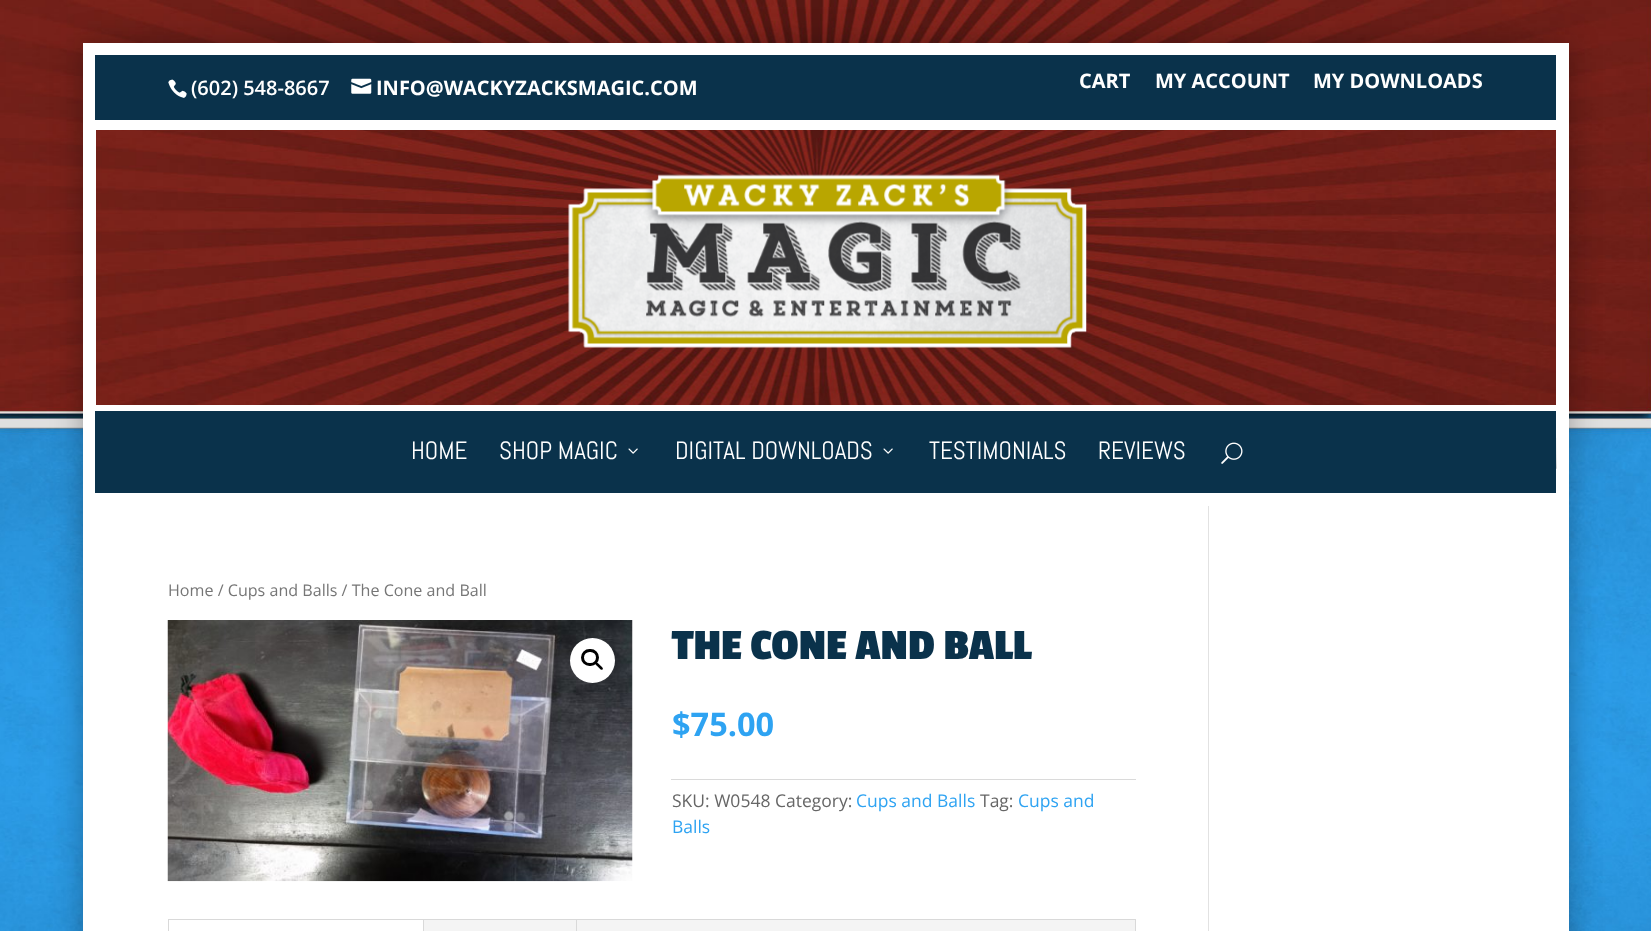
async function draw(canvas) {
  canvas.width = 1651
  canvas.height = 931
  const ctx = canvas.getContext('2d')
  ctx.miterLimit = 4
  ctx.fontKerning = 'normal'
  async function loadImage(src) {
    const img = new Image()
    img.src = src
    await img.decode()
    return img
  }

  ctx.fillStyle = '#fff'
  ctx.fillRect(0, 0, 1651, 931)
  ctx.drawImage(await loadImage('image0.png'), 0, 0, 1651, 931)
  ctx.save()
  ctx.beginPath()
  ctx.moveTo(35, 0)
  ctx.lineTo(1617, 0)
  ctx.lineTo(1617, 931)
  ctx.lineTo(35, 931)
  ctx.closePath()
  ctx.moveTo(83, 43)
  ctx.lineTo(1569, 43)
  ctx.lineTo(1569, 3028)
  ctx.lineTo(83, 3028)
  ctx.closePath()
  ctx.clip('evenodd')
  ctx.fillStyle = '#0000004d'
  ctx.filter = 'blur(15.5px)'
  ctx.beginPath()
  ctx.rect(83, 43, 1486, 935)
  ctx.fill()
  ctx.filter = 'none'
  ctx.restore()
  ctx.strokeStyle = '#fff'
  ctx.lineWidth = 13
  ctx.strokeRect(89.5, 49.5, 1473, 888)
  ctx.fillStyle = '#0a324b'
  ctx.fillRect(95, 55, 1461, 65)
  ctx.fillStyle = '#fff'
  ctx.fillRect(96, 120, 1460, 10)
  ctx.drawImage(await loadImage('image1.png'), 168, 79, 19, 19)
  ctx.font = '600 20px Open Sans'
  ctx.fillText('(602) 548-8667', 191, 95)
  ctx.drawImage(await loadImage('image2.png'), 351, 78, 21, 16)
  ctx.font = 'bold 20px Open Sans'
  ctx.fillText('INFO@WACKYZACKSMAGIC.COM', 376, 95)
  ctx.fillText('CART', 1079, 88)
  ctx.fillText('MY ACCOUNT', 1155, 88)
  ctx.fillText('MY DOWNLOADS', 1313, 88)
  ctx.drawImage(await loadImage('image3.png'), 1556, 438, 1, 31)
  ctx.fillRect(96, 506, 1460, 425)
  ctx.fillStyle = '#e2e2e2'
  ctx.fillRect(1208, 505, 1, 426)
  ctx.fillStyle = '#fff'
  ctx.fillRect(95, 503, 1461, 3)
  ctx.drawImage(await loadImage('image4.png'), 568, 174, 519, 174)
  ctx.fillStyle = '#0a324b'
  ctx.fillRect(95, 411, 1461, 82)
  ctx.fillStyle = '#fff'
  ctx.fillRect(95, 405, 1461, 6)
  ctx.fillRect(96, 493, 1460, 10)
  ctx.font = '25px Abel'
  ctx.fillText('HOME', 411, 459)
  ctx.fillText('SHOP MAGIC', 499, 459)
  ctx.drawImage(await loadImage('image5.png'), 628, 448, 10, 6)
  ctx.fillText('DIGITAL DOWNLOADS', 675, 459)
  ctx.drawImage(await loadImage('image5.png'), 883, 448, 10, 6)
  ctx.fillText('TESTIMONIALS', 929, 459)
  ctx.fillText('REVIEWS', 1098, 459)
  ctx.drawImage(await loadImage('image6.png'), 1221, 442, 22, 22)
  ctx.font = '16.1px Open Sans'
  ctx.fillStyle = '#767676'
  ctx.fillText('Home / Cups and Balls / The Cone and Ball', 168, 596)
  ctx.drawImage(await loadImage('image7.png'), 167, 620, 466, 262)
  ctx.fillStyle = '#fff'
  ctx.beginPath()
  ctx.arc(592.5, 660.5, 22.5, 0, 2 * Math.PI)
  ctx.fill()
  ctx.beginPath()
  ctx.roundRect(582.5, 650.5, 15, 14, 7)
  ctx.strokeStyle = '#000'
  ctx.lineWidth = 3
  ctx.stroke()
  ctx.fillStyle = '#000'
  ctx.beginPath()
  ctx.moveTo(595.5, 662.5)
  ctx.bezierCurveTo(597, 661, 599, 664.5, 600, 665)
  ctx.bezierCurveTo(600.5, 666, 604, 668, 602.5, 669.5)
  ctx.bezierCurveTo(601, 671, 599, 667.5, 598, 667)
  ctx.bezierCurveTo(597.5, 666, 594, 664, 595.5, 662.5)
  ctx.closePath()
  ctx.fill()
  ctx.font = 'bold 45px Passion One'
  ctx.fillStyle = '#0a324b'
  ctx.fillText('THE CONE AND BALL', 672, 659)
  ctx.font = 'bold 32.5px Open Sans'
  ctx.fillStyle = '#2ea3f2'
  ctx.fillText('$75.00', 672, 736)
  ctx.fillStyle = '#dadada'
  ctx.fillRect(671, 779, 465, 1)
  ctx.font = '17.5px Open Sans'
  ctx.fillStyle = '#666'
  ctx.fillText('SKU: W0548 Category:', 672, 807)
  ctx.fillStyle = '#2ea3f2'
  ctx.fillText('Cups and Balls', 856, 807)
  ctx.fillStyle = '#666'
  ctx.fillText('Tag:', 980, 807)
  ctx.fillStyle = '#2ea3f2'
  ctx.fillText('Cups and', 1018, 807)
  ctx.fillText('Balls', 672, 833)
  ctx.strokeStyle = '#d9d9d9'
  ctx.lineWidth = 1
  ctx.strokeRect(168.5, 919.5, 967, 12)
  ctx.fillStyle = '#f4f4f4'
  ctx.fillRect(424, 920, 711, 11)
  ctx.fillStyle = '#d9d9d9'
  ctx.fillRect(423, 920, 1, 11)
  ctx.fillRect(576, 920, 1, 11)
}

draw(document.querySelector('canvas'))
